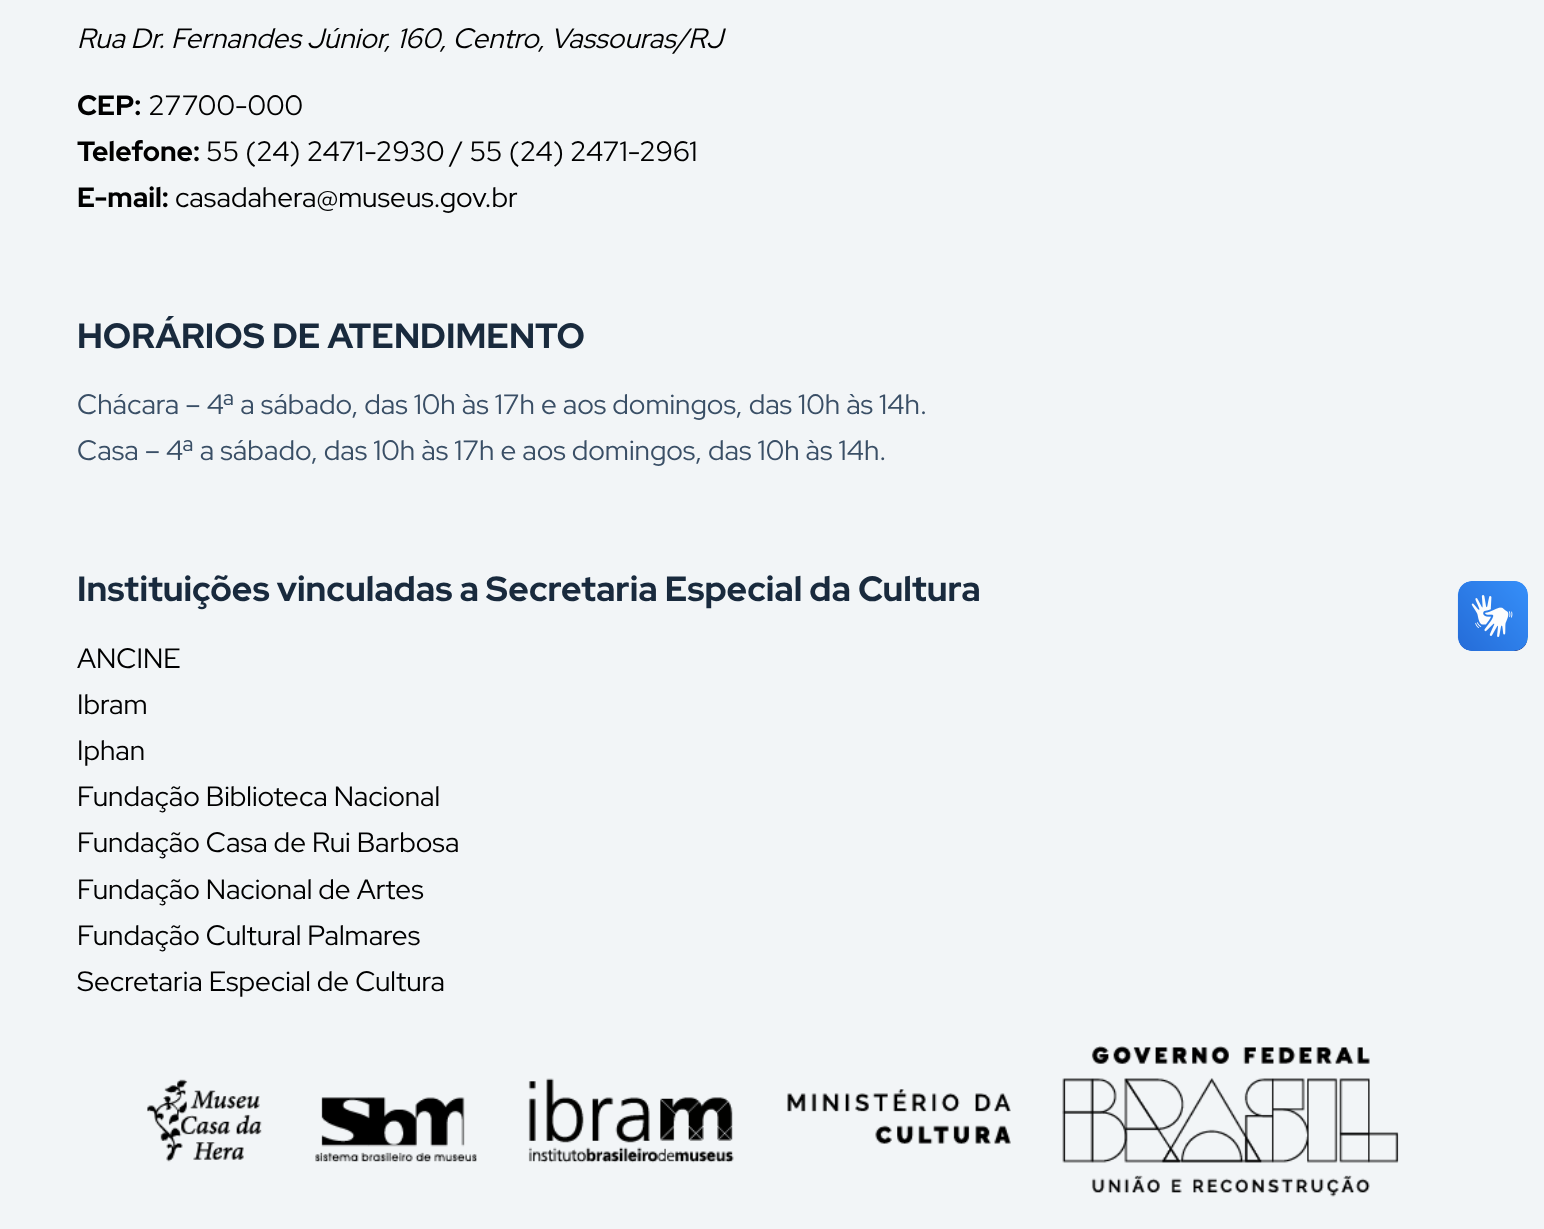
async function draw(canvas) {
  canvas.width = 1544
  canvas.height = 1229
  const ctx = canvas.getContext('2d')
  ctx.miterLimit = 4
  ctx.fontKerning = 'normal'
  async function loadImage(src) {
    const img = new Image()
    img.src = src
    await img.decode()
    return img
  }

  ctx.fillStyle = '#f2f5f7'
  ctx.fillRect(0, 0, 1544, 1229)
  ctx.font = 'italic 28px Red Hat Display'
  ctx.fillStyle = '#000'
  ctx.fillText('Rua Dr. Fernandes Júnior, 160, Centro, Vassouras/RJ', 77, 48)
  ctx.font = 'bold 28px Red Hat Display'
  ctx.fillText('CEP:', 77, 115)
  ctx.font = '28px Red Hat Display'
  ctx.fillText('27700-000', 148, 115)
  ctx.font = 'bold 28px Red Hat Display'
  ctx.fillText('Telefone:', 77, 161)
  ctx.font = '28px Red Hat Display'
  ctx.fillText('55 (24) 2471-2930 / 55 (24) 2471-2961', 206, 161)
  ctx.font = 'bold 28px Red Hat Display'
  ctx.fillText('E-mail:', 77, 207)
  ctx.font = '28px Red Hat Display'
  ctx.fillText('casadahera@museus.gov.br', 175, 207)
  ctx.font = 'bold 35px Red Hat Display'
  ctx.fillStyle = '#192a3d'
  ctx.fillText('HORÁRIOS DE ATENDIMENTO', 77, 348)
  ctx.font = '28px Red Hat Display'
  ctx.fillStyle = '#3a4f66'
  ctx.fillText('Chácara – 4ª a sábado, das 10h às 17h e aos domingos, das 10h às 14h.', 77, 414)
  ctx.fillText('Casa – 4ª a sábado, das 10h às 17h e aos domingos, das 10h às 14h.', 77, 460)
  ctx.font = 'bold 35px Red Hat Display'
  ctx.fillStyle = '#192a3d'
  ctx.fillText('Instituições vinculadas a Secretaria Especial da Cultura', 77, 601)
  ctx.font = '28px Red Hat Display'
  ctx.fillStyle = '#000'
  ctx.fillText('ANCINE', 77, 668)
  ctx.fillText('Ibram', 77, 714)
  ctx.fillText('Iphan', 77, 760)
  ctx.fillText('Fundação Biblioteca Nacional', 77, 806)
  ctx.fillText('Fundação Casa de Rui Barbosa', 77, 852)
  ctx.fillText('Fundação Nacional de Artes', 77, 899)
  ctx.fillText('Fundação Cultural Palmares', 77, 945)
  ctx.fillText('Secretaria Especial de Cultura', 77, 991)
  ctx.drawImage(await loadImage('image0.png'), 147, 1046, 1252, 151)
  ctx.drawImage(await loadImage('image1.png'), 1457, 581, 71, 70)
  ctx.drawImage(await loadImage('image2.png'), 1458, 581, 70, 70)
}

draw(document.querySelector('canvas'))
